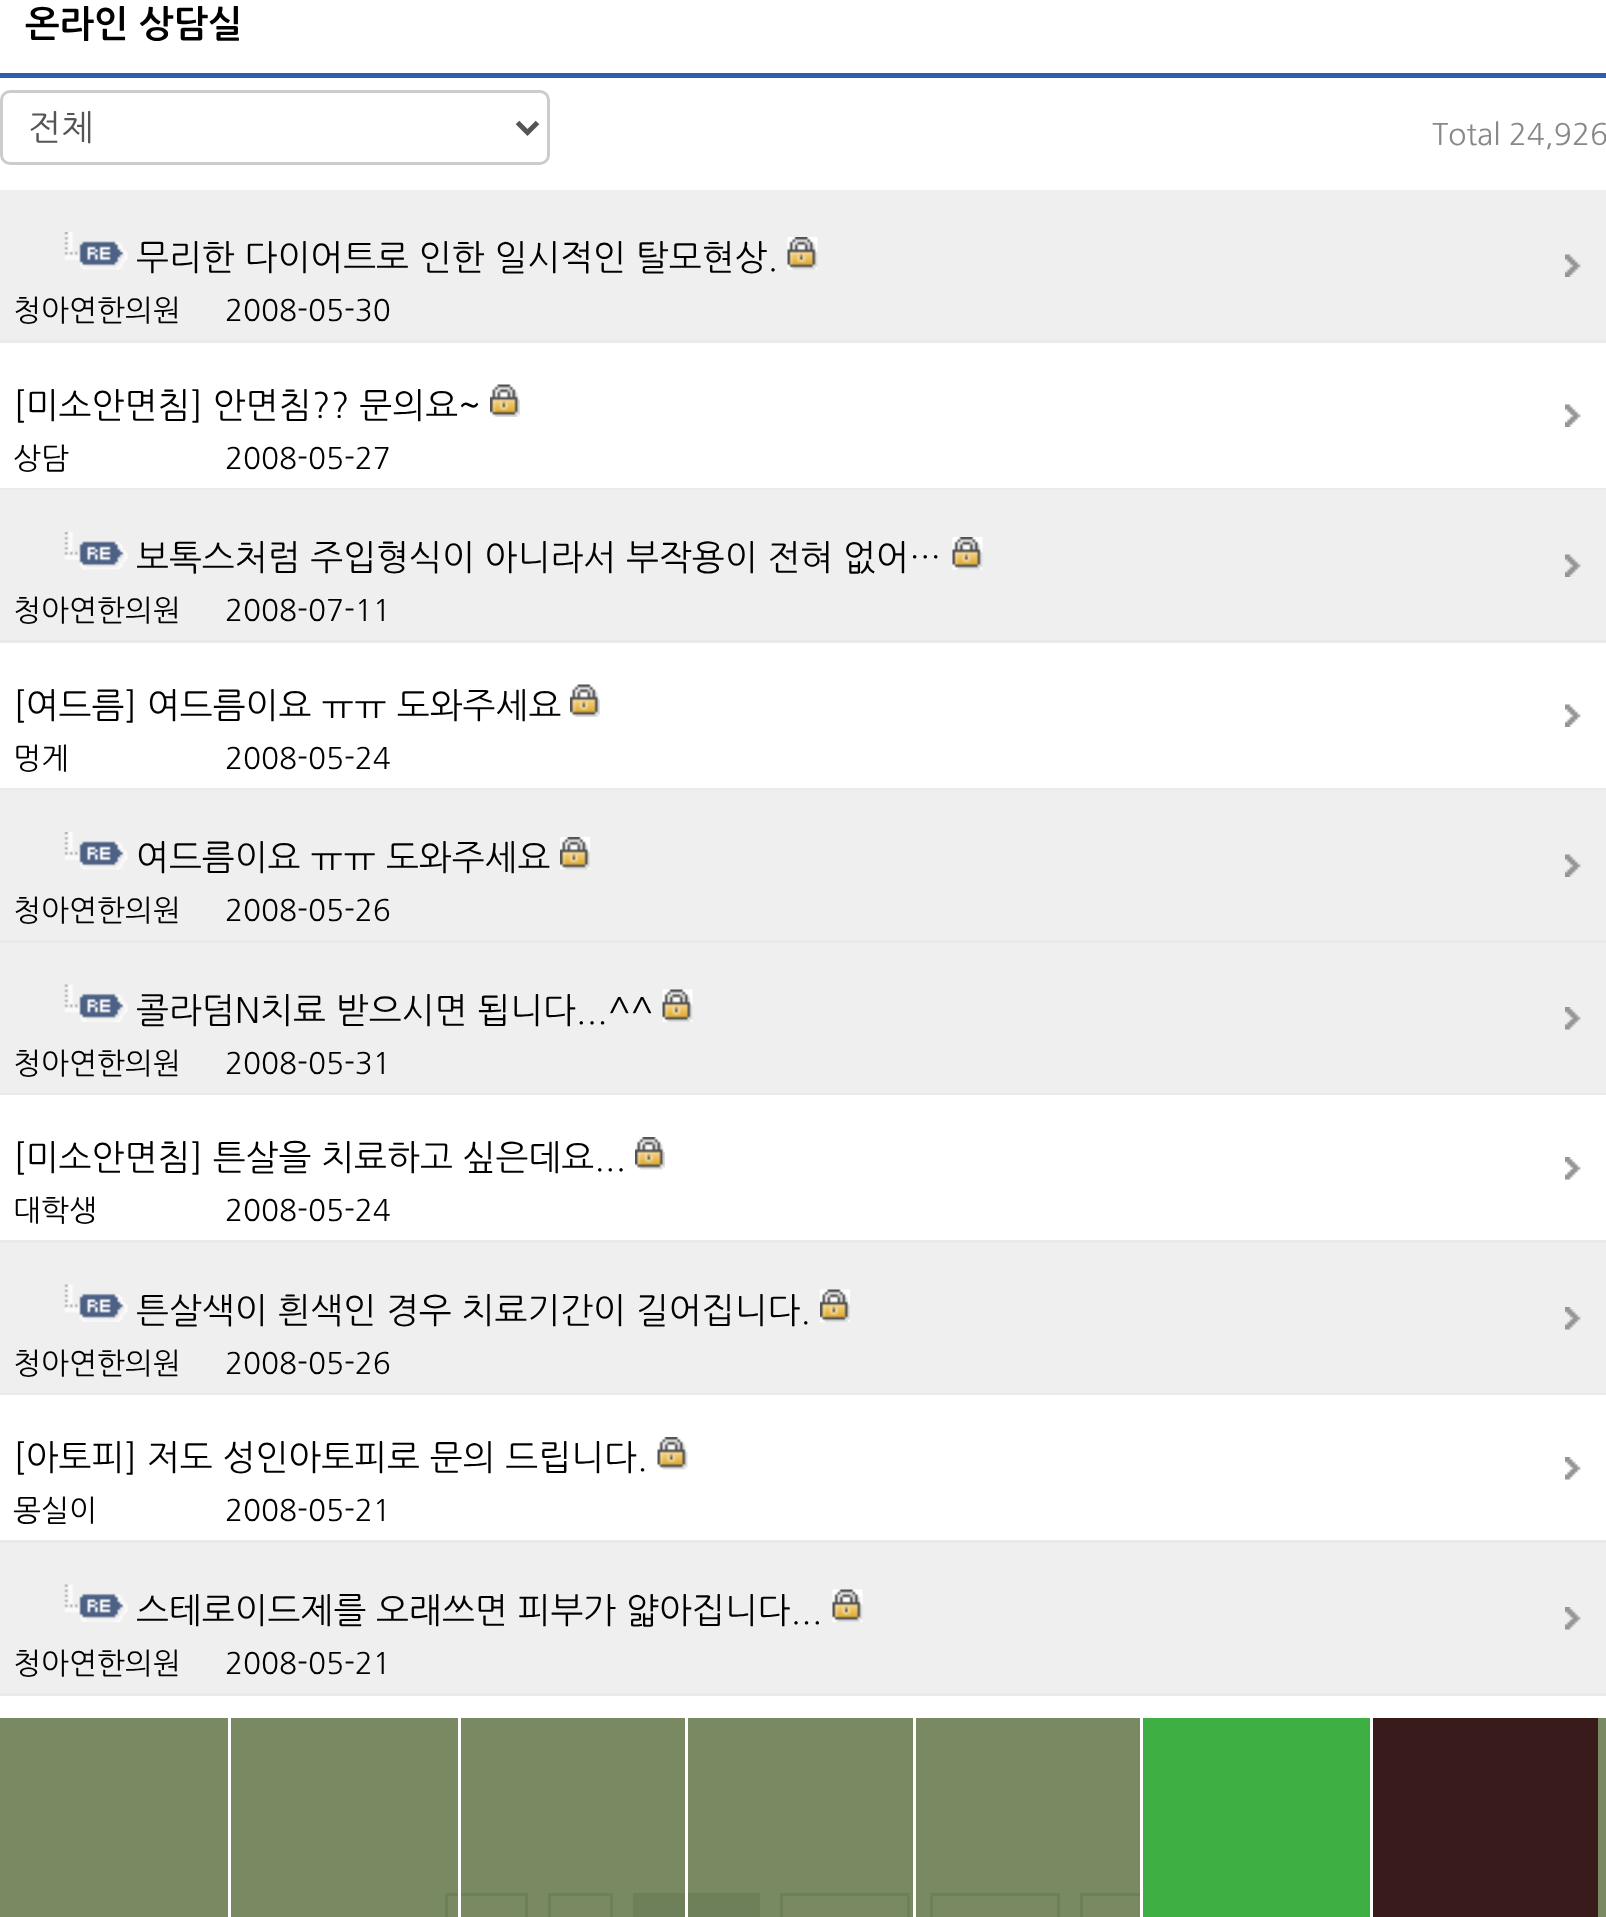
async function draw(canvas) {
  canvas.width = 1606
  canvas.height = 1917
  const ctx = canvas.getContext('2d')
  ctx.miterLimit = 4
  ctx.fontKerning = 'normal'
  async function loadImage(src) {
    const img = new Image()
    img.src = src
    await img.decode()
    return img
  }

  ctx.fillStyle = '#fff'
  ctx.fillRect(0, 0, 1606, 1917)
  ctx.fillStyle = '#798a63'
  ctx.fillRect(0, 1718, 1606, 199)
  ctx.fillStyle = '#2b5eb0'
  ctx.fillRect(0, 73, 1606, 5)
  ctx.font = 'bold 36.75px NanumGothic'
  ctx.fillStyle = '#000'
  ctx.fillText('온라인 상담실', 25, 37)
  ctx.beginPath()
  ctx.roundRect(1.5, 91.5, 547, 72, 8.5)
  ctx.strokeStyle = '#ccc'
  ctx.lineWidth = 3
  ctx.stroke()
  ctx.beginPath()
  ctx.moveTo(517.5, 122.5)
  ctx.lineTo(527.5, 132.5)
  ctx.lineTo(537.5, 122.5)
  ctx.strokeStyle = '#555'
  ctx.lineWidth = 5
  ctx.stroke()
  ctx.font = '35px NanumGothic'
  ctx.fillStyle = '#555'
  ctx.fillText('전체', 28, 140)
  ctx.font = '29.75px NanumGothic'
  ctx.fillStyle = '#888'
  ctx.fillText('Total 24,926', 1432, 145)
  ctx.fillStyle = '#efefef'
  ctx.fillRect(0, 190, 1606, 150)
  ctx.fillStyle = '#eaeaea'
  ctx.fillRect(0, 340, 1606, 3)
  ctx.drawImage(await loadImage('image0.png'), 1565, 254, 16, 23)
  ctx.drawImage(await loadImage('image1.png'), 64, 232, 64, 38)
  ctx.font = '35px NanumGothic'
  ctx.fillStyle = '#000'
  ctx.fillText('무리한 다이어트로 인한 일시적인 탈모현상.', 136, 270)
  ctx.drawImage(await loadImage('image2.png'), 787, 237, 31, 33)
  ctx.font = '29.75px NanumGothic'
  ctx.fillText('청아연한의원', 13, 321)
  ctx.fillText('2008-05-30', 225, 321)
  ctx.fillStyle = '#eaeaea'
  ctx.fillRect(0, 488, 1606, 2)
  ctx.drawImage(await loadImage('image3.png'), 1565, 404, 16, 23)
  ctx.font = '35px NanumGothic'
  ctx.fillStyle = '#000'
  ctx.fillText('[미소안면침] 안면침?? 문의요~', 13, 418)
  ctx.drawImage(await loadImage('image4.png'), 490, 384, 30, 33)
  ctx.font = '29.75px NanumGothic'
  ctx.fillText('상담', 13, 469)
  ctx.fillText('2008-05-27', 225, 469)
  ctx.fillStyle = '#efefef'
  ctx.fillRect(0, 490, 1606, 150)
  ctx.fillStyle = '#eaeaea'
  ctx.fillRect(0, 640, 1606, 3)
  ctx.drawImage(await loadImage('image5.png'), 1565, 554, 16, 23)
  ctx.drawImage(await loadImage('image6.png'), 64, 532, 64, 38)
  ctx.font = '35px NanumGothic'
  ctx.fillStyle = '#000'
  ctx.fillText('보톡스처럼 주입형식이 아니라서 부작용이 전혀 없어…', 136, 570)
  ctx.drawImage(await loadImage('image7.png'), 952, 537, 31, 33)
  ctx.font = '29.75px NanumGothic'
  ctx.fillText('청아연한의원', 13, 621)
  ctx.fillText('2008-07-11', 225, 621)
  ctx.fillStyle = '#eaeaea'
  ctx.fillRect(0, 788, 1606, 2)
  ctx.drawImage(await loadImage('image3.png'), 1565, 704, 16, 23)
  ctx.font = '35px NanumGothic'
  ctx.fillStyle = '#000'
  ctx.fillText('[여드름] 여드름이요 ㅠㅠ 도와주세요', 13, 718)
  ctx.drawImage(await loadImage('image8.png'), 570, 684, 30, 33)
  ctx.font = '29.75px NanumGothic'
  ctx.fillText('멍게', 13, 769)
  ctx.fillText('2008-05-24', 225, 769)
  ctx.fillStyle = '#efefef'
  ctx.fillRect(0, 790, 1606, 150)
  ctx.fillStyle = '#eaeaea'
  ctx.fillRect(0, 940, 1606, 3)
  ctx.drawImage(await loadImage('image5.png'), 1565, 854, 16, 23)
  ctx.drawImage(await loadImage('image9.png'), 64, 832, 64, 38)
  ctx.font = '35px NanumGothic'
  ctx.fillStyle = '#000'
  ctx.fillText('여드름이요 ㅠㅠ 도와주세요', 136, 870)
  ctx.drawImage(await loadImage('image10.png'), 560, 837, 30, 33)
  ctx.font = '29.75px NanumGothic'
  ctx.fillText('청아연한의원', 13, 921)
  ctx.fillText('2008-05-26', 225, 921)
  ctx.fillStyle = '#efefef'
  ctx.fillRect(0, 943, 1606, 150)
  ctx.fillStyle = '#eaeaea'
  ctx.fillRect(0, 1093, 1606, 2)
  ctx.drawImage(await loadImage('image11.png'), 1565, 1007, 16, 23)
  ctx.drawImage(await loadImage('image12.png'), 64, 984, 64, 38)
  ctx.font = '35px NanumGothic'
  ctx.fillStyle = '#000'
  ctx.fillText('콜라덤N치료 받으시면 됩니다...^^', 136, 1023)
  ctx.drawImage(await loadImage('image13.png'), 662, 989, 31, 33)
  ctx.font = '29.75px NanumGothic'
  ctx.fillText('청아연한의원', 13, 1074)
  ctx.fillText('2008-05-31', 225, 1074)
  ctx.fillStyle = '#eaeaea'
  ctx.fillRect(0, 1240, 1606, 3)
  ctx.drawImage(await loadImage('image14.png'), 1565, 1157, 16, 23)
  ctx.font = '35px NanumGothic'
  ctx.fillStyle = '#000'
  ctx.fillText('[미소안면침] 튼살을 치료하고 싶은데요...', 13, 1170)
  ctx.drawImage(await loadImage('image15.png'), 635, 1137, 30, 33)
  ctx.font = '29.75px NanumGothic'
  ctx.fillText('대학생', 13, 1221)
  ctx.fillText('2008-05-24', 225, 1221)
  ctx.fillStyle = '#efefef'
  ctx.fillRect(0, 1243, 1606, 150)
  ctx.fillStyle = '#eaeaea'
  ctx.fillRect(0, 1393, 1606, 2)
  ctx.drawImage(await loadImage('image11.png'), 1565, 1307, 16, 23)
  ctx.drawImage(await loadImage('image12.png'), 64, 1284, 64, 38)
  ctx.font = '35px NanumGothic'
  ctx.fillStyle = '#000'
  ctx.fillText('튼살색이 흰색인 경우 치료기간이 길어집니다.', 136, 1323)
  ctx.drawImage(await loadImage('image16.png'), 820, 1289, 30, 33)
  ctx.font = '29.75px NanumGothic'
  ctx.fillText('청아연한의원', 13, 1374)
  ctx.fillText('2008-05-26', 225, 1374)
  ctx.fillStyle = '#eaeaea'
  ctx.fillRect(0, 1540, 1606, 3)
  ctx.drawImage(await loadImage('image14.png'), 1565, 1457, 16, 23)
  ctx.font = '35px NanumGothic'
  ctx.fillStyle = '#000'
  ctx.fillText('[아토피] 저도 성인아토피로 문의 드립니다.', 13, 1470)
  ctx.drawImage(await loadImage('image17.png'), 657, 1437, 31, 33)
  ctx.font = '29.75px NanumGothic'
  ctx.fillText('몽실이', 13, 1521)
  ctx.fillText('2008-05-21', 225, 1521)
  ctx.fillStyle = '#efefef'
  ctx.fillRect(0, 1543, 1606, 150)
  ctx.fillStyle = '#eaeaea'
  ctx.fillRect(0, 1693, 1606, 3)
  ctx.drawImage(await loadImage('image11.png'), 1565, 1607, 16, 23)
  ctx.drawImage(await loadImage('image12.png'), 64, 1584, 64, 38)
  ctx.font = '35px NanumGothic'
  ctx.fillStyle = '#000'
  ctx.fillText('스테로이드제를 오래쓰면 피부가 얇아집니다...', 136, 1623)
  ctx.drawImage(await loadImage('image18.png'), 832, 1589, 31, 33)
  ctx.font = '29.75px NanumGothic'
  ctx.fillText('청아연한의원', 13, 1674)
  ctx.fillText('2008-05-21', 225, 1674)
  ctx.strokeStyle = '#6e8059'
  ctx.lineWidth = 3
  ctx.strokeRect(446.5, 1894.5, 80, 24)
  ctx.strokeRect(549.5, 1894.5, 62, 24)
  ctx.fillStyle = '#6e8059'
  ctx.fillRect(633, 1893, 127, 24)
  ctx.strokeRect(781.5, 1894.5, 127, 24)
  ctx.strokeRect(931.5, 1894.5, 127, 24)
  ctx.strokeRect(1081.5, 1894.5, 80, 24)
  ctx.fillStyle = '#fff'
  ctx.fillRect(228, 1718, 3, 199)
  ctx.fillRect(458, 1718, 3, 199)
  ctx.fillRect(685, 1718, 3, 199)
  ctx.fillRect(913, 1718, 3, 199)
  ctx.fillStyle = '#3daf43'
  ctx.fillRect(1143, 1718, 227, 199)
  ctx.fillStyle = '#fff'
  ctx.fillRect(1140, 1718, 3, 199)
  ctx.fillStyle = '#391b1b'
  ctx.fillRect(1373, 1718, 225, 199)
  ctx.fillStyle = '#fff'
  ctx.fillRect(1370, 1718, 3, 199)
}

draw(document.querySelector('canvas'))
